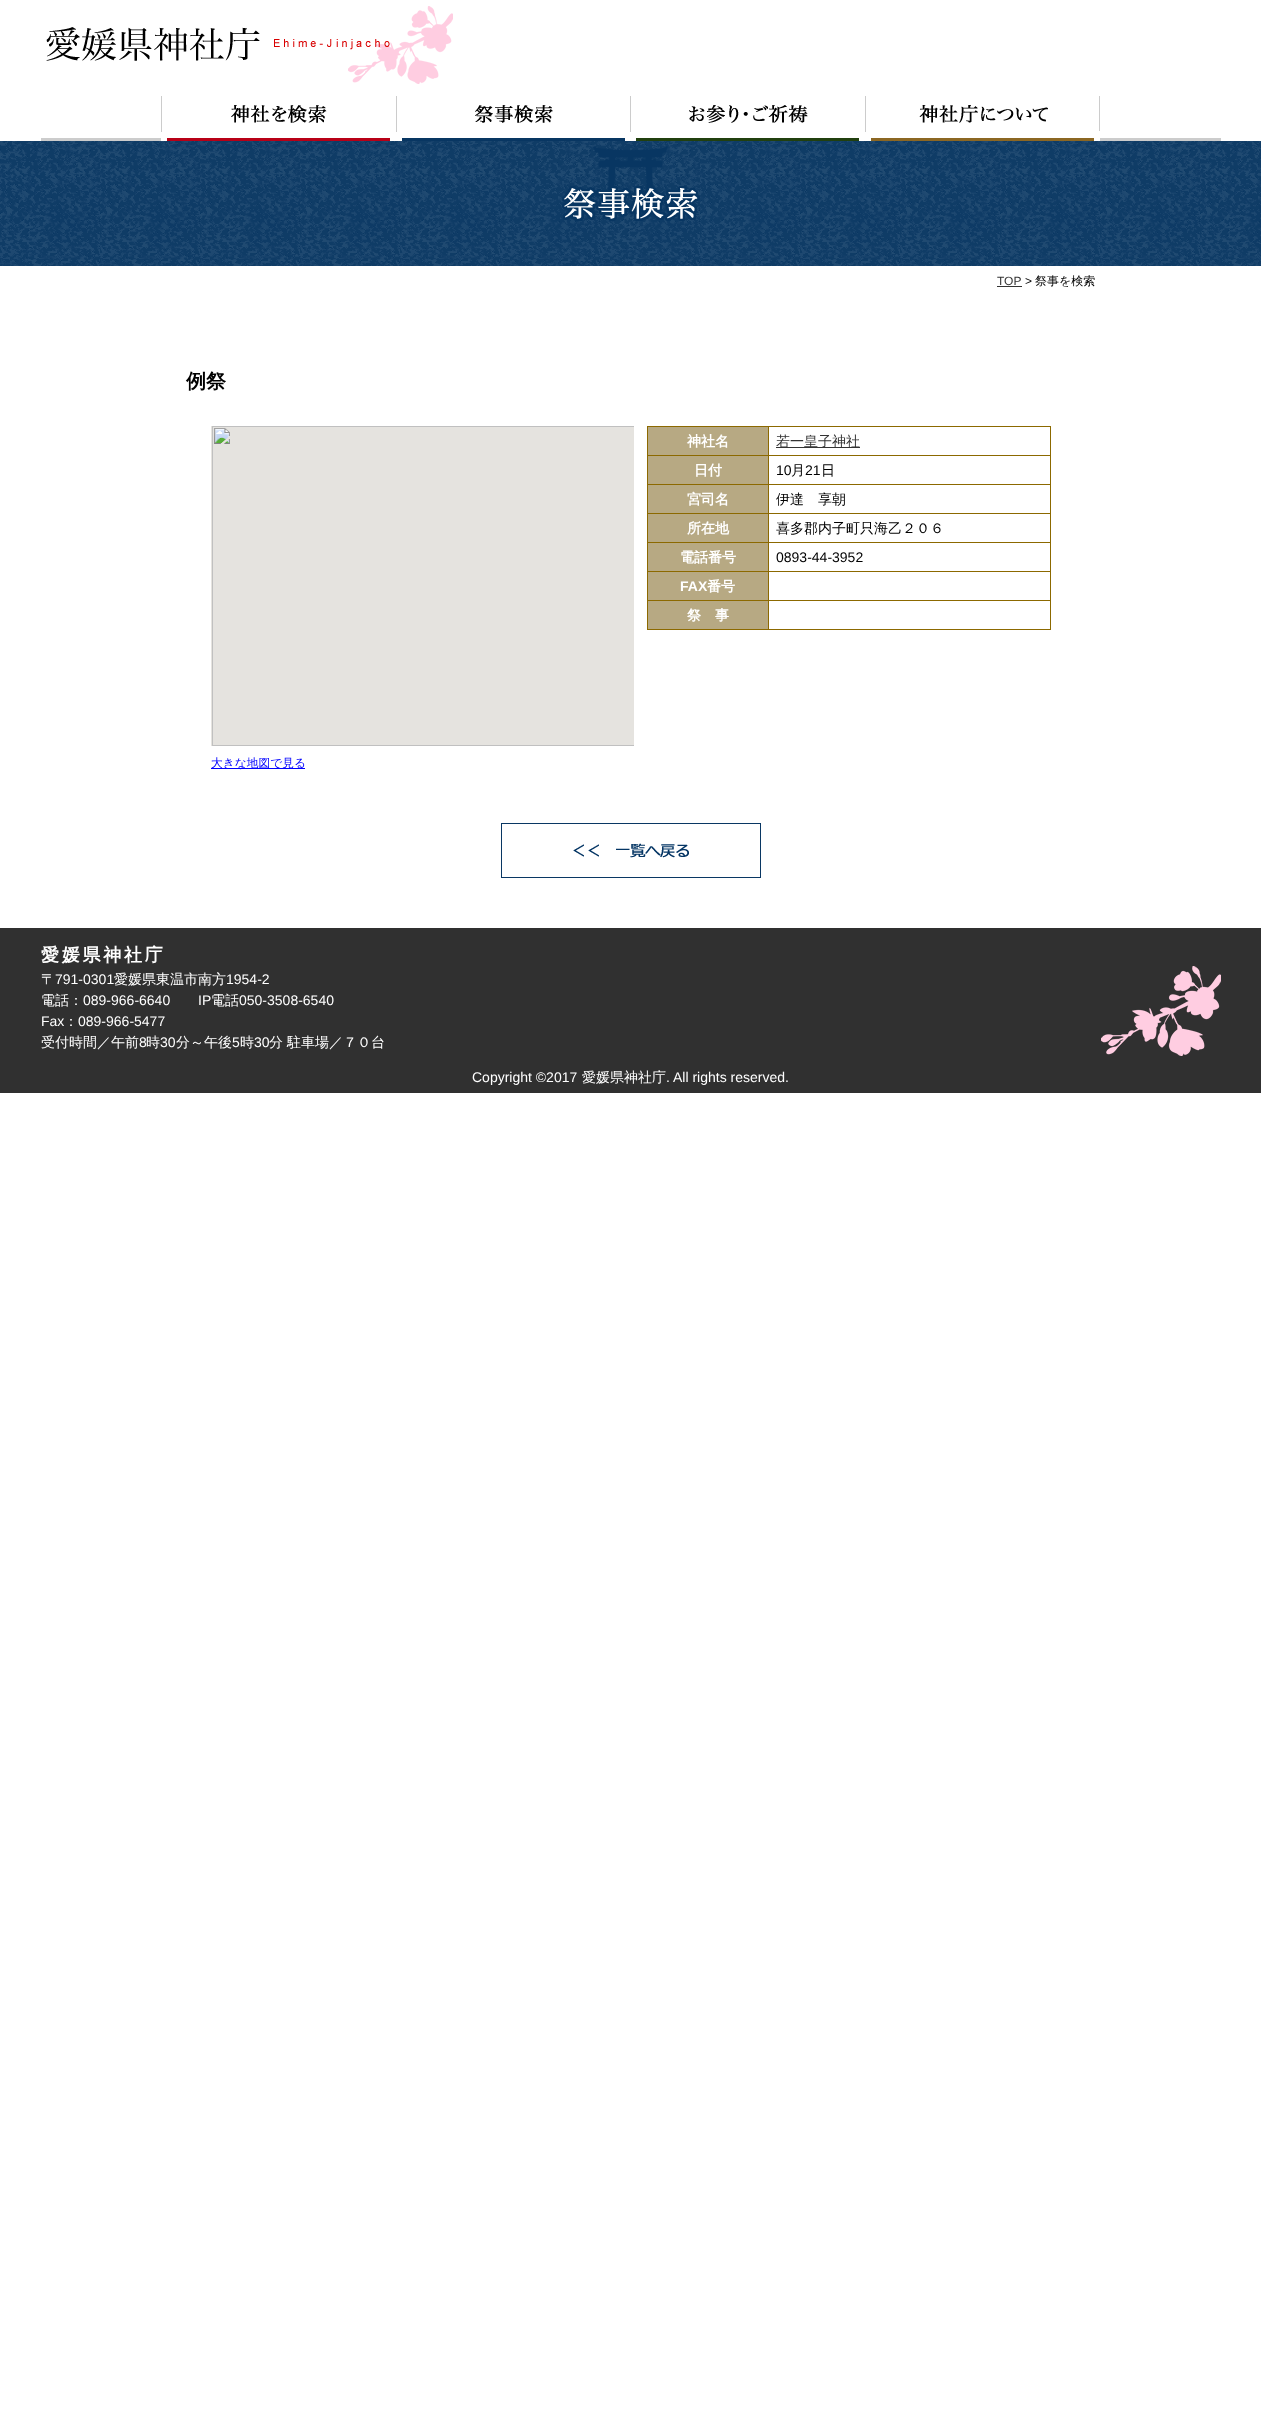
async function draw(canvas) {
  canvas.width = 1261
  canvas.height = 2431
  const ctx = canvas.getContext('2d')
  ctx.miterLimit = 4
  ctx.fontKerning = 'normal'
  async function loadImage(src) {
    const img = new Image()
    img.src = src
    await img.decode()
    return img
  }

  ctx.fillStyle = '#fff'
  ctx.fillRect(0, 0, 1261, 2431)
  ctx.fillStyle = '#ccc'
  ctx.fillRect(41, 138, 1180, 3)
  ctx.drawImage(await loadImage('image0.png'), 46, 6, 407, 78)
  ctx.fillStyle = '#fff'
  ctx.fillRect(161, 138, 939, 3)
  ctx.drawImage(await loadImage('image1.png'), 161, 96, 236, 45)
  ctx.drawImage(await loadImage('image2.png'), 402, 96, 229, 45)
  ctx.drawImage(await loadImage('image3.png'), 636, 96, 230, 45)
  ctx.drawImage(await loadImage('image4.png'), 871, 96, 229, 45)
  ctx.drawImage(await loadImage('image5.png'), 0, 141, 1261, 125)
  ctx.drawImage(await loadImage('image6.png'), 562, 146, 138, 75)
  ctx.font = '12px Liberation Sans'
  ctx.fillStyle = '#333'
  ctx.fillText('TOP', 997, 285)
  ctx.fillRect(997, 286, 25, 1)
  ctx.fillStyle = '#000'
  ctx.fillText('>', 1025, 285)
  ctx.font = '500 12px WenQuanYi Zen Hei'
  ctx.fillText('祭事を検索', 1035, 285)
  ctx.font = 'bold 20px WenQuanYi Zen Hei'
  ctx.fillText('例祭', 186, 388)
  ctx.fillStyle = '#8c6900'
  ctx.fillRect(647, 426, 404, 1)
  ctx.fillRect(647, 426, 1, 204)
  ctx.fillStyle = '#b7a983'
  ctx.fillRect(648, 427, 120, 28)
  ctx.fillStyle = '#8c6900'
  ctx.fillRect(768, 427, 1, 203)
  ctx.fillRect(648, 455, 121, 1)
  ctx.font = 'bold 14px WenQuanYi Zen Hei'
  ctx.fillStyle = '#fff'
  ctx.fillText('神社名', 687, 446)
  ctx.fillStyle = '#8c6900'
  ctx.fillRect(1050, 427, 1, 203)
  ctx.fillRect(769, 455, 282, 1)
  ctx.fillStyle = '#333'
  ctx.fillRect(776, 447, 84, 1)
  ctx.font = '500 14px WenQuanYi Zen Hei'
  ctx.fillText('若一皇子神社', 776, 446)
  ctx.fillStyle = '#b7a983'
  ctx.fillRect(648, 456, 120, 28)
  ctx.fillStyle = '#8c6900'
  ctx.fillRect(648, 484, 403, 1)
  ctx.font = 'bold 14px WenQuanYi Zen Hei'
  ctx.fillStyle = '#fff'
  ctx.fillText('日付', 694, 475)
  ctx.font = '14px Liberation Sans'
  ctx.fillStyle = '#000'
  ctx.fillText('10', 776, 475)
  ctx.font = '500 14px WenQuanYi Zen Hei'
  ctx.fillText('月', 791, 475)
  ctx.font = '14px Liberation Sans'
  ctx.fillText('21', 805, 475)
  ctx.font = '500 14px WenQuanYi Zen Hei'
  ctx.fillText('日', 821, 475)
  ctx.fillStyle = '#b7a983'
  ctx.fillRect(648, 485, 120, 28)
  ctx.fillStyle = '#8c6900'
  ctx.fillRect(648, 513, 403, 1)
  ctx.font = 'bold 14px WenQuanYi Zen Hei'
  ctx.fillStyle = '#fff'
  ctx.fillText('宮司名', 687, 504)
  ctx.font = '500 14px WenQuanYi Zen Hei'
  ctx.fillStyle = '#000'
  ctx.fillText('伊達　享朝', 776, 504)
  ctx.fillStyle = '#b7a983'
  ctx.fillRect(648, 514, 120, 28)
  ctx.fillStyle = '#8c6900'
  ctx.fillRect(648, 542, 403, 1)
  ctx.font = 'bold 14px WenQuanYi Zen Hei'
  ctx.fillStyle = '#fff'
  ctx.fillText('所在地', 687, 533)
  ctx.font = '500 14px WenQuanYi Zen Hei'
  ctx.fillStyle = '#000'
  ctx.fillText('喜多郡内子町只海乙２０６', 776, 533)
  ctx.fillStyle = '#b7a983'
  ctx.fillRect(648, 543, 120, 28)
  ctx.fillStyle = '#8c6900'
  ctx.fillRect(648, 571, 403, 1)
  ctx.font = 'bold 14px WenQuanYi Zen Hei'
  ctx.fillStyle = '#fff'
  ctx.fillText('電話番号', 680, 562)
  ctx.font = '14px Liberation Sans'
  ctx.fillStyle = '#000'
  ctx.fillText('0893-44-3952', 776, 562)
  ctx.fillStyle = '#b7a983'
  ctx.fillRect(648, 572, 120, 28)
  ctx.fillStyle = '#8c6900'
  ctx.fillRect(648, 600, 403, 1)
  ctx.font = 'bold 14px Liberation Sans'
  ctx.fillStyle = '#fff'
  ctx.fillText('FAX', 680, 591)
  ctx.font = 'bold 14px WenQuanYi Zen Hei'
  ctx.fillText('番号', 707, 591)
  ctx.fillStyle = '#b7a983'
  ctx.fillRect(648, 601, 120, 28)
  ctx.fillStyle = '#8c6900'
  ctx.fillRect(648, 629, 403, 1)
  ctx.fillStyle = '#fff'
  ctx.fillText('祭　事', 687, 620)
  ctx.drawImage(await loadImage('image7.png'), 211, 426, 423, 320)
  ctx.fillStyle = '#00f'
  ctx.fillRect(211, 768, 94, 1)
  ctx.font = '500 11.75px WenQuanYi Zen Hei'
  ctx.fillText('大きな地図で見る', 211, 767)
  ctx.drawImage(await loadImage('image8.png'), 501, 823, 260, 55)
  ctx.fillStyle = '#303030'
  ctx.fillRect(0, 928, 1261, 165)
  ctx.drawImage(await loadImage('image9.png'), 1101, 966, 120, 90)
  ctx.letterSpacing = '2.75px'
  ctx.font = 'bold 18px WenQuanYi Zen Hei'
  ctx.fillStyle = '#fff'
  ctx.fillText('愛媛県神社庁', 41, 961)
  ctx.letterSpacing = '0px'
  ctx.font = '500 14px WenQuanYi Zen Hei'
  ctx.fillText('〒', 41, 984)
  ctx.font = '14px Liberation Sans'
  ctx.fillText('791-0301', 55, 984)
  ctx.font = '500 14px WenQuanYi Zen Hei'
  ctx.fillText('愛媛県東温市南方', 114, 984)
  ctx.font = '14px Liberation Sans'
  ctx.fillText('1954-2', 226, 984)
  ctx.font = '500 14px WenQuanYi Zen Hei'
  ctx.fillText('電話：', 41, 1005)
  ctx.font = '14px Liberation Sans'
  ctx.fillText('089-966-6640', 83, 1005)
  ctx.fillText('IP', 198, 1005)
  ctx.font = '500 14px WenQuanYi Zen Hei'
  ctx.fillText('電話', 211, 1005)
  ctx.font = '14px Liberation Sans'
  ctx.fillText('050-3508-6540', 239, 1005)
  ctx.fillText('Fax', 41, 1026)
  ctx.font = '500 14px WenQuanYi Zen Hei'
  ctx.fillText('：', 64, 1026)
  ctx.font = '14px Liberation Sans'
  ctx.fillText('089-966-5477', 78, 1026)
  ctx.font = '500 14px WenQuanYi Zen Hei'
  ctx.fillText('受付時間／午前', 41, 1047)
  ctx.font = '14px Liberation Sans'
  ctx.fillText('8', 139, 1047)
  ctx.font = '500 14px WenQuanYi Zen Hei'
  ctx.fillText('時', 146, 1047)
  ctx.font = '14px Liberation Sans'
  ctx.fillText('30', 160, 1047)
  ctx.font = '500 14px WenQuanYi Zen Hei'
  ctx.fillText('分～午後', 176, 1047)
  ctx.font = '14px Liberation Sans'
  ctx.fillText('5', 232, 1047)
  ctx.font = '500 14px WenQuanYi Zen Hei'
  ctx.fillText('時', 240, 1047)
  ctx.font = '14px Liberation Sans'
  ctx.fillText('30', 254, 1047)
  ctx.font = '500 14px WenQuanYi Zen Hei'
  ctx.fillText('分', 269, 1047)
  ctx.fillText('駐車場／７０台', 287, 1047)
  ctx.font = '14px Liberation Sans'
  ctx.fillText('Copyright ©2017', 472, 1082)
  ctx.font = '500 14px WenQuanYi Zen Hei'
  ctx.fillText('愛媛県神社庁', 582, 1082)
  ctx.font = '14px Liberation Sans'
  ctx.fillText('. All rights reserved.', 666, 1082)
}

draw(document.querySelector('canvas'))
